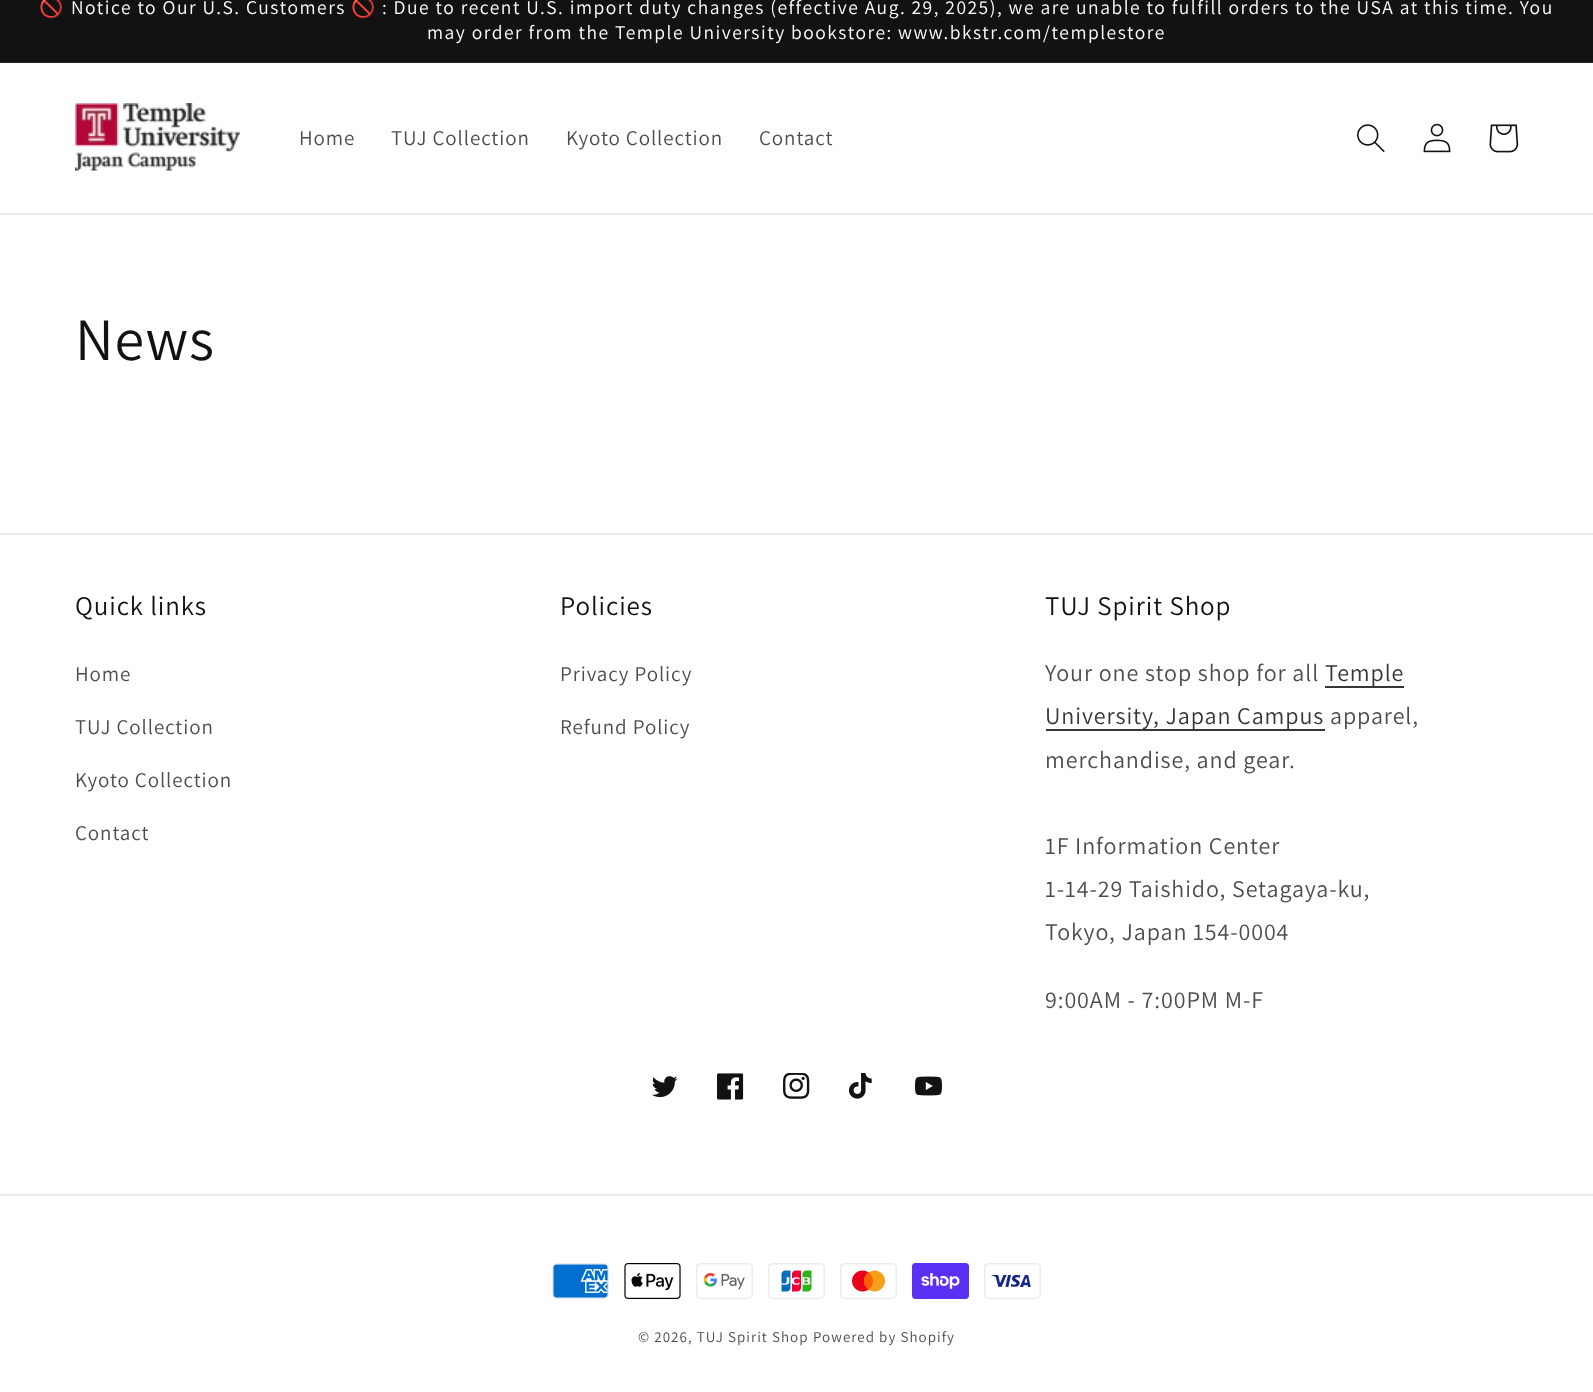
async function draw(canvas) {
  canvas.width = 1593
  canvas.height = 1392
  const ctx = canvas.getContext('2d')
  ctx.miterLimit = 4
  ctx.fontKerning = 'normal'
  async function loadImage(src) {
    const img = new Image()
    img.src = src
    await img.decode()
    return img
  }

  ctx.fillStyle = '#fff'
  ctx.fillRect(0, 0, 1593, 1392)
  ctx.fillStyle = '#121212'
  ctx.fillRect(0, 0, 1593, 62)
  ctx.fillStyle = '#252525'
  ctx.fillRect(0, 62, 1593, 1)
  ctx.letterSpacing = '1.5px'
  ctx.font = '19.5px Noto Color Emoji'
  ctx.fillStyle = '#fff'
  ctx.fillText('🚫', 39, 14)
  ctx.font = '19.5px Assistant'
  ctx.fillText('Notice to Our U.S. Customers', 71, 14)
  ctx.font = '19.5px Noto Color Emoji'
  ctx.fillText('🚫', 351, 14)
  ctx.font = '19.5px Assistant'
  ctx.fillText(': Due to recent U.S. import duty changes (effective Aug. 29, 2025), we are unable to fulfill orders to the USA at this time. You', 382, 14)
  ctx.fillText('may order from the Temple University bookstore: www.bkstr.com/templestore', 427, 39)
  ctx.fillStyle = '#ececec'
  ctx.fillRect(0, 213, 1593, 2)
  ctx.drawImage(await loadImage('image0.png'), 75, 103, 165, 68)
  ctx.letterSpacing = '0.9px'
  ctx.font = '21px Assistant'
  ctx.fillStyle = '#4d4d4d'
  ctx.fillText('Home', 299, 145)
  ctx.fillText('TUJ Collection', 391, 145)
  ctx.fillText('Kyoto Collection', 566, 145)
  ctx.fillText('Contact', 759, 145)
  ctx.drawImage(await loadImage('image1.png'), 1357, 124, 28, 28)
  ctx.drawImage(await loadImage('image2.png'), 1423, 123, 28, 30)
  ctx.drawImage(await loadImage('image3.png'), 1489, 124, 30, 29)
  ctx.font = '60px Assistant'
  ctx.fillStyle = '#121212'
  ctx.fillText('News', 75, 360)
  ctx.fillStyle = '#ececec'
  ctx.fillRect(0, 533, 1593, 2)
  ctx.font = '27px Assistant'
  ctx.fillStyle = '#121212'
  ctx.fillText('Quick links', 75, 615)
  ctx.font = '21px Assistant'
  ctx.fillStyle = '#4d4d4d'
  ctx.fillText('Home', 75, 681)
  ctx.fillText('TUJ Collection', 75, 734)
  ctx.fillText('Kyoto Collection', 75, 787)
  ctx.fillText('Contact', 75, 840)
  ctx.font = '27px Assistant'
  ctx.fillStyle = '#121212'
  ctx.fillText('Policies', 560, 615)
  ctx.font = '21px Assistant'
  ctx.fillStyle = '#4d4d4d'
  ctx.fillText('Privacy Policy', 560, 681)
  ctx.fillText('Refund Policy', 560, 734)
  ctx.font = '27px Assistant'
  ctx.fillStyle = '#121212'
  ctx.fillText('TUJ Spirit Shop', 1045, 615)
  ctx.font = '24px Assistant'
  ctx.fillStyle = '#4d4d4d'
  ctx.fillText('Your one stop shop for all', 1045, 681)
  ctx.fillStyle = '#363636'
  ctx.fillText('Temple', 1325, 681)
  ctx.fillRect(1325, 686, 79, 2)
  ctx.fillRect(1046, 729, 279, 2)
  ctx.fillText('University, Japan Campus', 1045, 724)
  ctx.fillStyle = '#4d4d4d'
  ctx.fillText('apparel,', 1330, 724)
  ctx.fillText('merchandise, and gear.', 1045, 768)
  ctx.fillText('1F Information Center', 1045, 854)
  ctx.fillText('1-14-29 Taishido, Setagaya-ku,', 1045, 897)
  ctx.fillText('Tokyo, Japan 154-0004', 1045, 940)
  ctx.fillText('9:00AM - 7:00PM M-F', 1045, 1008)
  ctx.drawImage(await loadImage('image4.png'), 652, 1076, 26, 22)
  ctx.drawImage(await loadImage('image5.png'), 717, 1073, 27, 27)
  ctx.drawImage(await loadImage('image6.png'), 783, 1073, 27, 26)
  ctx.drawImage(await loadImage('image7.png'), 849, 1073, 23, 26)
  ctx.drawImage(await loadImage('image8.png'), 915, 1076, 27, 20)
  ctx.fillStyle = '#ececec'
  ctx.fillRect(0, 1194, 1593, 2)
  ctx.drawImage(await loadImage('image9.png'), 552, 1263, 57, 36)
  ctx.drawImage(await loadImage('image10.png'), 624, 1263, 57, 36)
  ctx.drawImage(await loadImage('image11.png'), 696, 1263, 57, 36)
  ctx.drawImage(await loadImage('image12.png'), 768, 1263, 57, 36)
  ctx.drawImage(await loadImage('image13.png'), 840, 1263, 57, 36)
  ctx.drawImage(await loadImage('image14.png'), 912, 1263, 57, 36)
  ctx.drawImage(await loadImage('image15.png'), 984, 1263, 57, 36)
  ctx.letterSpacing = '1.05px'
  ctx.font = '15px Assistant'
  ctx.fillStyle = '#4d4d4d'
  ctx.fillText('© 2026, TUJ Spirit Shop', 638, 1342)
  ctx.fillText('Powered by Shopify', 813, 1342)
}

draw(document.querySelector('canvas'))
